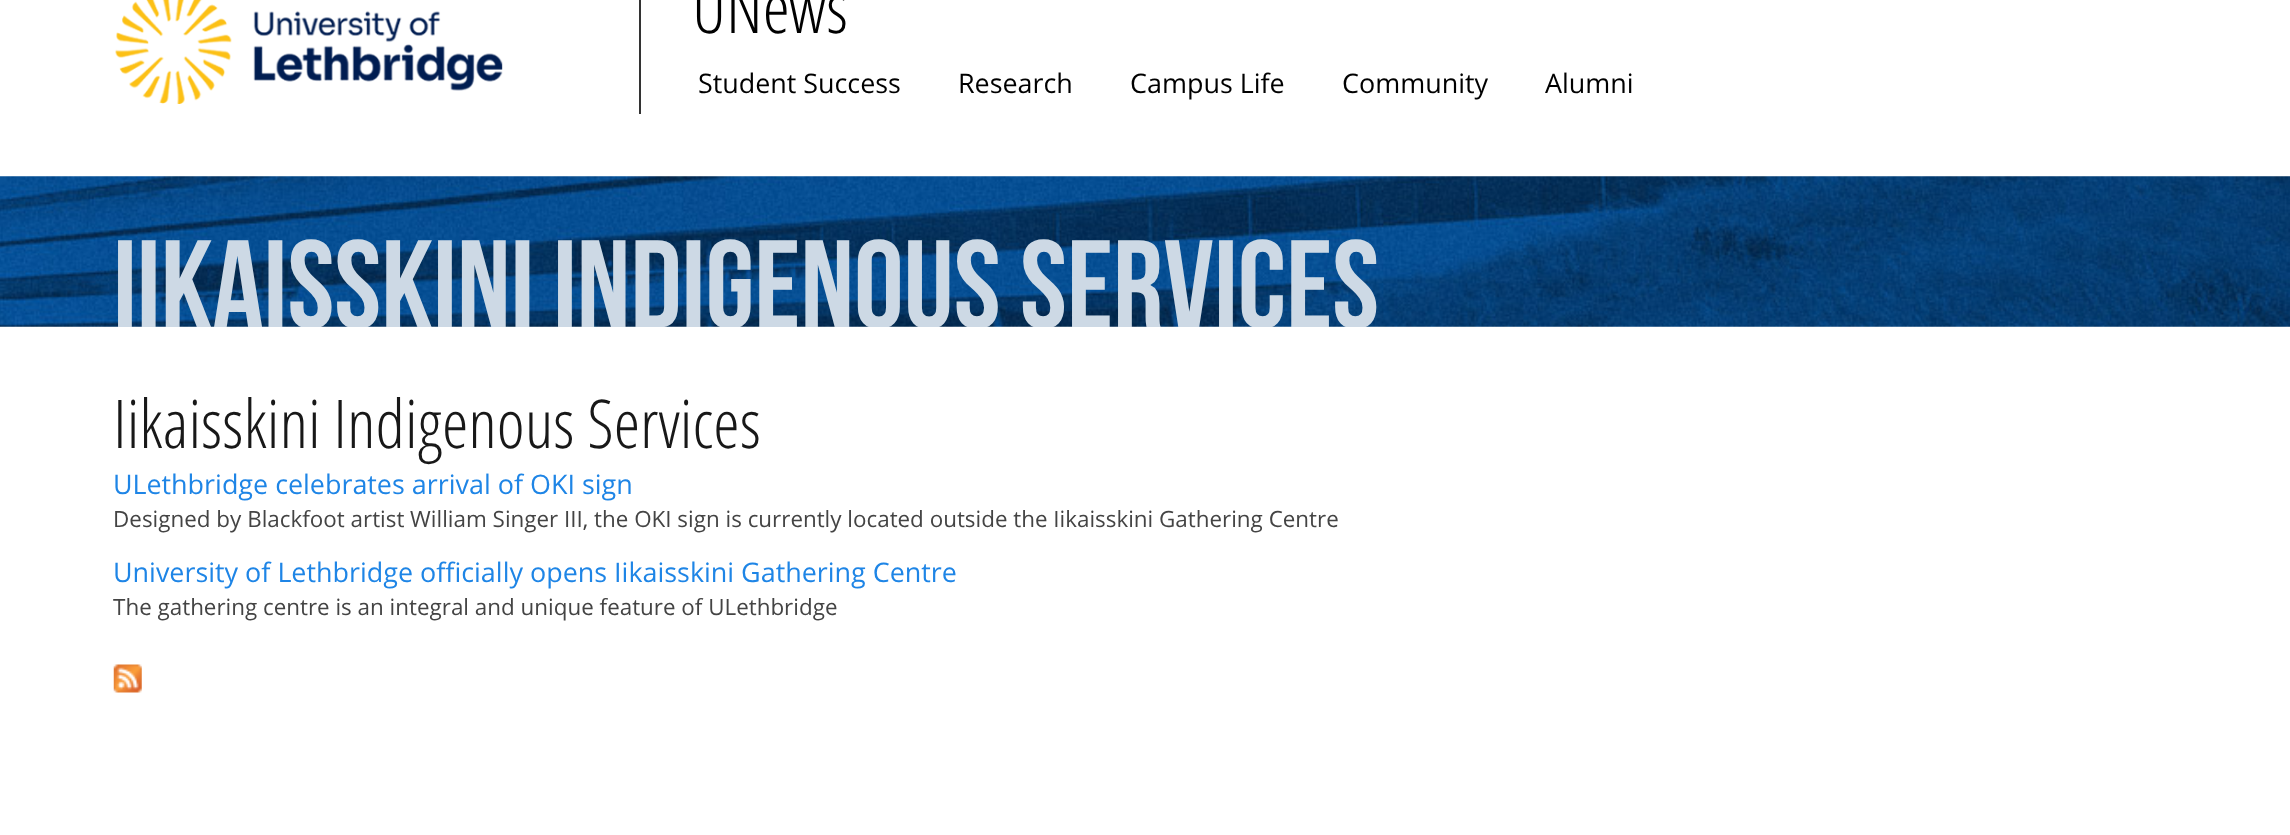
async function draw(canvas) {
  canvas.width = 2290
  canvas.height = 835
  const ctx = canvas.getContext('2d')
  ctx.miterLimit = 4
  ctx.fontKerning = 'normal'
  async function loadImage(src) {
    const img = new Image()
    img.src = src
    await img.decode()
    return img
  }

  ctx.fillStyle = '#fff'
  ctx.fillRect(0, 0, 2290, 835)
  ctx.drawImage(await loadImage('image0.png'), 115, 0, 388, 104)
  ctx.fillStyle = '#333'
  ctx.fillRect(639, 0, 2, 114)
  ctx.font = '300 69px Open Sans'
  ctx.fillStyle = '#000'
  ctx.fillText('UNews', 692, 33)
  ctx.font = '26.9px Open Sans'
  ctx.fillText('Student Success', 698, 93)
  ctx.fillText('Research', 958, 93)
  ctx.fillText('Campus Life', 1130, 93)
  ctx.fillText('Community', 1342, 93)
  ctx.fillText('Alumni', 1545, 93)
  ctx.drawImage(await loadImage('image1.png'), 0, 176, 2290, 151)
  ctx.save()
  ctx.beginPath()
  ctx.rect(0, 177, 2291, 150)
  ctx.clip()
  ctx.font = '125.5px Bebas Neue'
  ctx.fillStyle = '#cdd9e5'
  ctx.fillText('Iikaisskini', 113, 328)
  ctx.fillText('Indigenous', 553, 328)
  ctx.fillText('Services', 1020, 328)
  ctx.restore()
  ctx.font = '300 67.25px Open Sans'
  ctx.fillStyle = '#181818'
  ctx.fillText('Iikaisskini Indigenous Services', 113, 448)
  ctx.font = '26.9px Open Sans'
  ctx.fillStyle = '#1e85e6'
  ctx.fillText('ULethbridge celebrates arrival of OKI sign', 113, 494)
  ctx.font = '22.4px Open Sans'
  ctx.fillStyle = '#444'
  ctx.fillText('Designed by Blackfoot artist William Singer III, the OKI sign is currently located outside the Iikaisskini Gathering Centre', 113, 527)
  ctx.font = '26.9px Open Sans'
  ctx.fillStyle = '#1e85e6'
  ctx.fillText('University of Lethbridge officially opens Iikaisskini Gathering Centre', 113, 582)
  ctx.font = '22.4px Open Sans'
  ctx.fillStyle = '#444'
  ctx.fillText('The gathering centre is an integral and unique feature of ULethbridge', 113, 615)
  ctx.drawImage(await loadImage('image2.png'), 113, 664, 29, 29)
}

draw(document.querySelector('canvas'))
